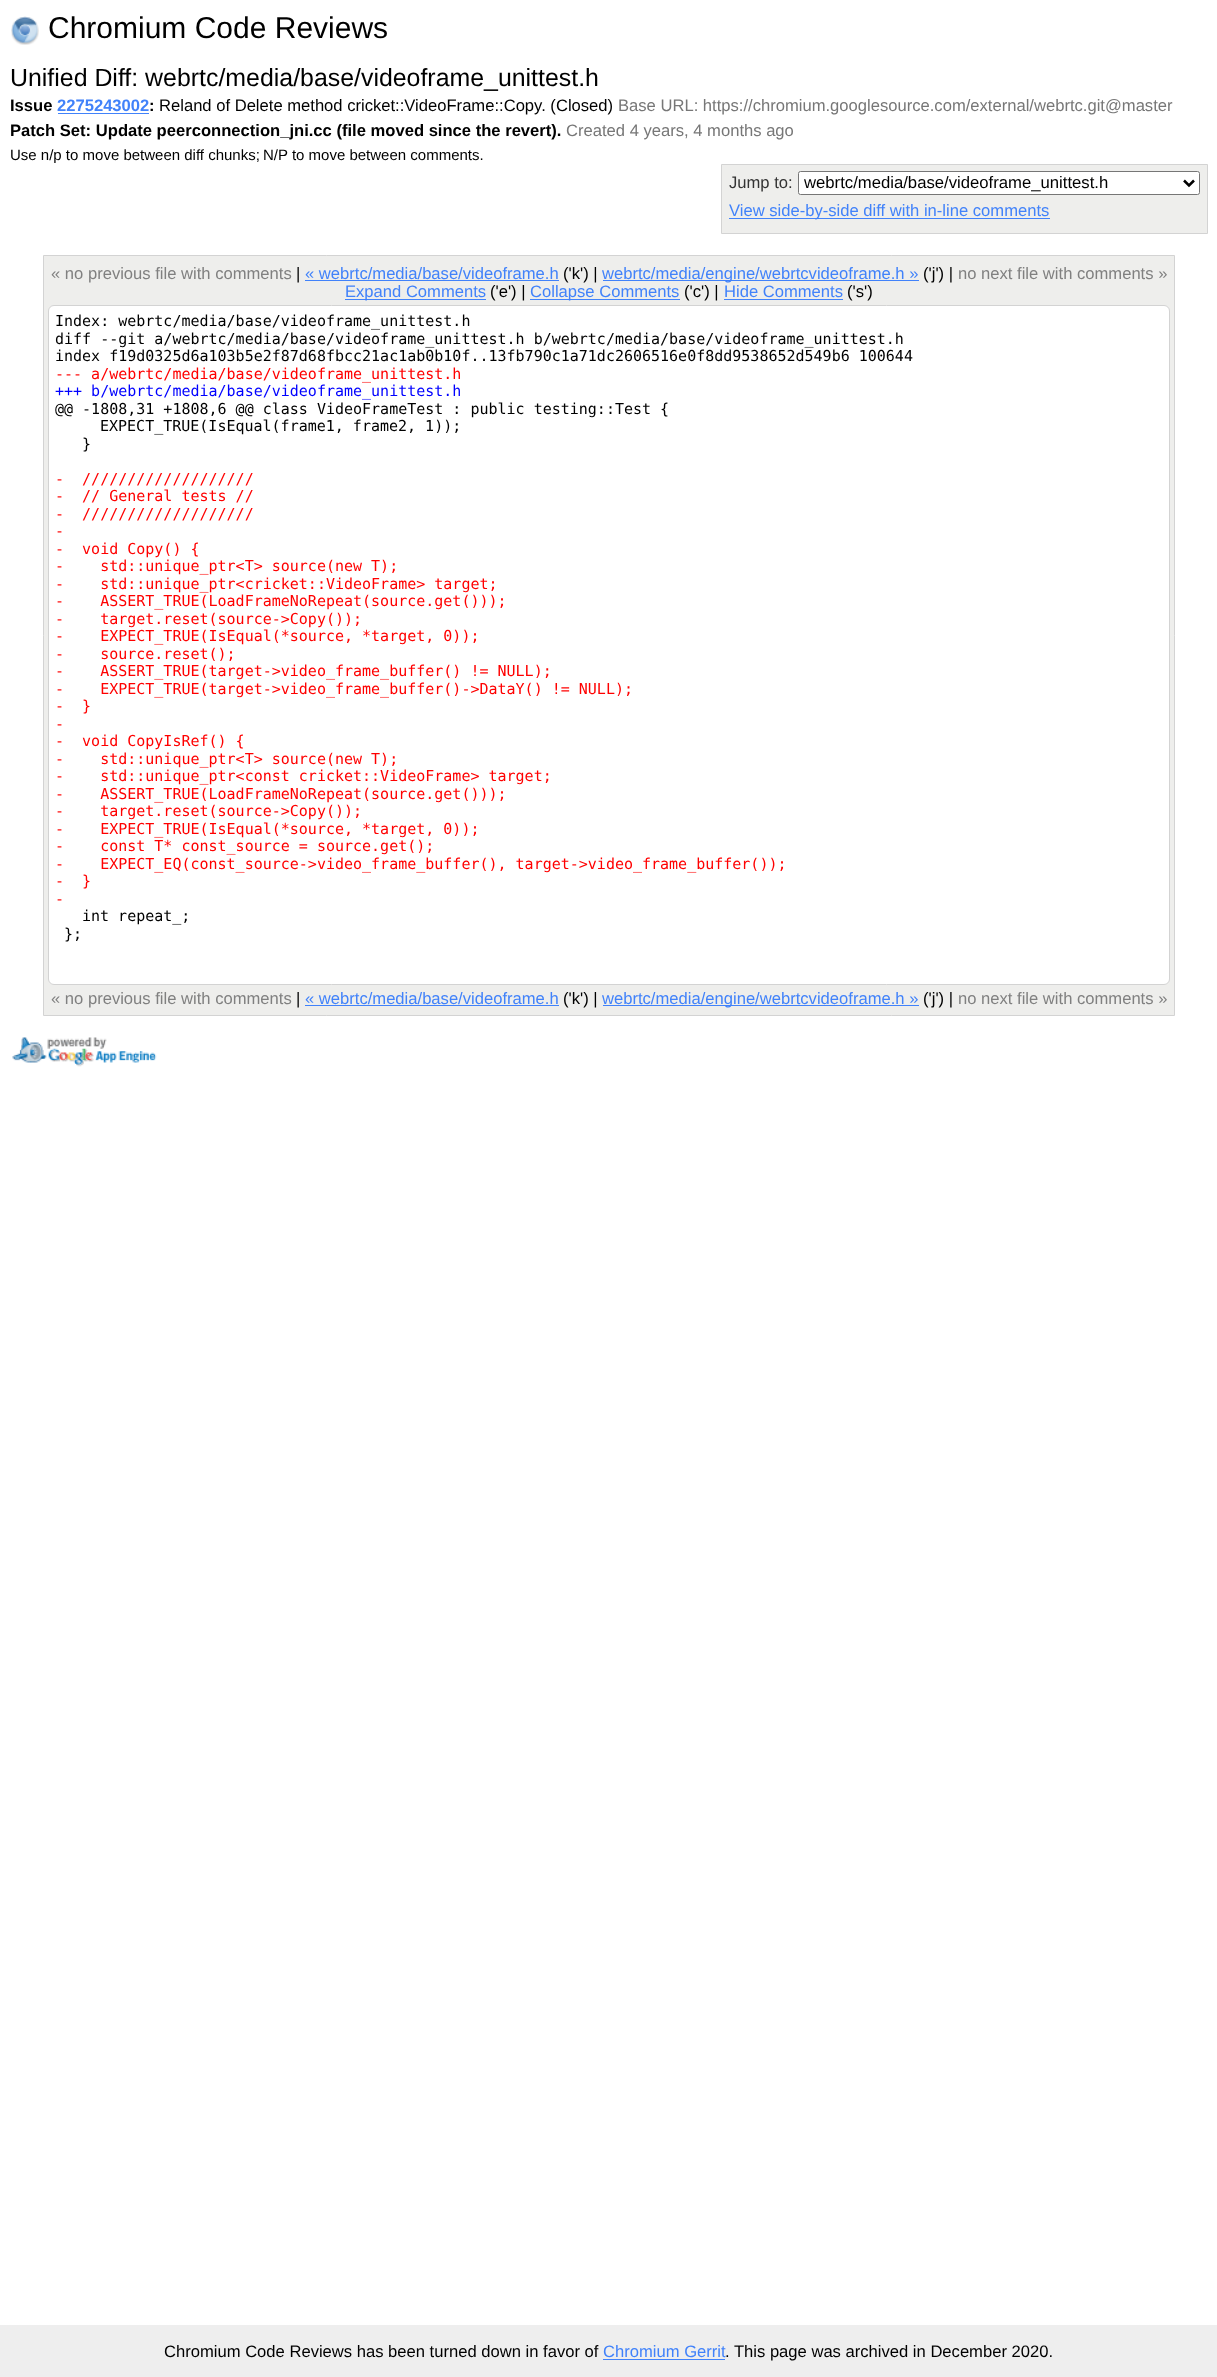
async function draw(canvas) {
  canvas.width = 1217
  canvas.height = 2377
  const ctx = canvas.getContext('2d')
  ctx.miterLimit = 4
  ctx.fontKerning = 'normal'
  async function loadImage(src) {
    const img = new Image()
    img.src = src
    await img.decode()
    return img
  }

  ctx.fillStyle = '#fff'
  ctx.fillRect(0, 0, 1217, 2377)
  ctx.drawImage(await loadImage('image0.png'), 11, 16, 28, 29)
  ctx.font = '30px Liberation Sans'
  ctx.fillStyle = '#000'
  ctx.fillText('Chromium Code Reviews', 48, 38)
  ctx.font = '24.9px Liberation Sans'
  ctx.fillText('Unified Diff: webrtc/media/base/videoframe_unittest.h', 10, 86)
  ctx.font = 'bold 16.6px Liberation Sans'
  ctx.fillText('Issue', 10, 111)
  ctx.fillStyle = '#4182fa'
  ctx.fillText('2275243002', 57, 111)
  ctx.fillStyle = '#000'
  ctx.fillText(':', 149, 111)
  ctx.fillStyle = '#4182fa'
  ctx.fillRect(58, 113, 91, 1)
  ctx.font = '16.6px Liberation Sans'
  ctx.fillStyle = '#000'
  ctx.fillText('Reland of Delete method cricket::VideoFrame::Copy. (Closed)', 159, 111)
  ctx.fillStyle = '#777'
  ctx.fillText('Base URL: https://chromium.googlesource.com/external/webrtc.git@master', 618, 111)
  ctx.font = 'bold 16.6px Liberation Sans'
  ctx.fillStyle = '#000'
  ctx.fillText('Patch Set: Update peerconnection_jni.cc (file moved since the revert).', 10, 136)
  ctx.font = '16.6px Liberation Sans'
  ctx.fillStyle = '#777'
  ctx.fillText('Created 4 years, 4 months ago', 566, 136)
  ctx.font = '15px Liberation Sans'
  ctx.fillStyle = '#000'
  ctx.fillText('Use n/p to move between diff chunks;', 10, 160)
  ctx.fillText('N/P to move between comments.', 263, 160)
  ctx.fillStyle = '#eeeeec'
  ctx.beginPath()
  ctx.rect(721.5, 164.5, 486, 69)
  ctx.fill()
  ctx.strokeStyle = '#d3d3d3'
  ctx.stroke()
  ctx.font = '16.6px Liberation Sans'
  ctx.fillStyle = '#333'
  ctx.fillText('Jump to:', 729, 188)
  ctx.fillStyle = '#fff'
  ctx.beginPath()
  ctx.roundRect(798.5, 171.5, 401, 23, 2)
  ctx.fill()
  ctx.strokeStyle = '#767676'
  ctx.stroke()
  ctx.beginPath()
  ctx.moveTo(1184, 180.5)
  ctx.lineTo(1189, 185.5)
  ctx.lineTo(1194, 180.5)
  ctx.strokeStyle = '#000'
  ctx.lineWidth = 2.5
  ctx.stroke()
  ctx.font = '16.7px Liberation Sans'
  ctx.fillStyle = '#000'
  ctx.fillText('webrtc/media/base/videoframe_unittest.h', 804, 188)
  ctx.fillStyle = '#4182fa'
  ctx.fillRect(729, 218, 321, 1)
  ctx.font = '16.6px Liberation Sans'
  ctx.fillText('View side-by-side diff with in-line comments', 729, 216)
  ctx.fillStyle = '#eeeeec'
  ctx.beginPath()
  ctx.rect(43.5, 255.5, 1131, 760)
  ctx.fill()
  ctx.strokeStyle = '#d3d3d3'
  ctx.lineWidth = 1
  ctx.stroke()
  ctx.fillStyle = '#808080'
  ctx.fillText('« no previous file with comments', 51, 279)
  ctx.fillStyle = '#000'
  ctx.fillText('|', 296, 279)
  ctx.fillStyle = '#4182fa'
  ctx.fillText('« webrtc/media/base/videoframe.h', 305, 279)
  ctx.fillRect(305, 280, 254, 1)
  ctx.fillStyle = '#000'
  ctx.fillText('(\'k\') |', 563, 279)
  ctx.fillStyle = '#4182fa'
  ctx.fillRect(603, 280, 316, 1)
  ctx.fillText('webrtc/media/engine/webrtcvideoframe.h »', 602, 279)
  ctx.fillStyle = '#000'
  ctx.fillText('(\'j\') |', 923, 279)
  ctx.fillStyle = '#808080'
  ctx.fillText('no next file with comments »', 958, 279)
  ctx.fillStyle = '#4182fa'
  ctx.fillRect(345, 299, 141, 1)
  ctx.fillText('Expand Comments', 345, 297)
  ctx.fillStyle = '#000'
  ctx.fillText('(\'e\') |', 490, 297)
  ctx.fillStyle = '#4182fa'
  ctx.fillRect(530, 299, 150, 1)
  ctx.fillText('Collapse Comments', 530, 297)
  ctx.fillStyle = '#000'
  ctx.fillText('(\'c\') |', 684, 297)
  ctx.fillStyle = '#4182fa'
  ctx.fillText('Hide Comments', 724, 297)
  ctx.fillRect(724, 299, 119, 1)
  ctx.fillStyle = '#000'
  ctx.fillText('(\'s\')', 847, 297)
  ctx.fillStyle = '#fff'
  ctx.beginPath()
  ctx.roundRect(48.5, 305.5, 1121, 679, 5.5)
  ctx.fill()
  ctx.stroke()
  ctx.font = '15px DejaVu Sans Mono'
  ctx.fillStyle = '#000'
  ctx.fillText('Index: webrtc/media/base/videoframe_unittest.h', 55, 326)
  ctx.fillText('diff --git a/webrtc/media/base/videoframe_unittest.h b/webrtc/media/base/videoframe_unittest.h', 55, 344)
  ctx.fillText('index f19d0325d6a103b5e2f87d68fbcc21ac1ab0b10f..13fb790c1a71dc2606516e0f8dd9538652d549b6 100644', 55, 361)
  ctx.fillStyle = '#f00'
  ctx.fillText('--- a/webrtc/media/base/videoframe_unittest.h', 55, 379)
  ctx.fillStyle = '#00f'
  ctx.fillText('+++ b/webrtc/media/base/videoframe_unittest.h', 55, 396)
  ctx.fillStyle = '#000'
  ctx.fillText('@@ -1808,31 +1808,6 @@ class VideoFrameTest : public testing::Test {', 55, 414)
  ctx.fillText('EXPECT_TRUE(IsEqual(frame1, frame2, 1));', 100, 431)
  ctx.fillText('}', 82, 449)
  ctx.fillStyle = '#f00'
  ctx.fillText('-  ///////////////////', 55, 484)
  ctx.fillText('-  // General tests //', 55, 501)
  ctx.fillText('-  ///////////////////', 55, 519)
  ctx.fillText('-', 55, 536)
  ctx.fillText('-  void Copy() {', 55, 554)
  ctx.fillText('-    std::unique_ptr<T> source(new T);', 55, 571)
  ctx.fillText('-    std::unique_ptr<cricket::VideoFrame> target;', 55, 589)
  ctx.fillText('-    ASSERT_TRUE(LoadFrameNoRepeat(source.get()));', 55, 606)
  ctx.fillText('-    target.reset(source->Copy());', 55, 624)
  ctx.fillText('-    EXPECT_TRUE(IsEqual(*source, *target, 0));', 55, 641)
  ctx.fillText('-    source.reset();', 55, 659)
  ctx.fillText('-    ASSERT_TRUE(target->video_frame_buffer() != NULL);', 55, 676)
  ctx.fillText('-    EXPECT_TRUE(target->video_frame_buffer()->DataY() != NULL);', 55, 694)
  ctx.fillText('-  }', 55, 711)
  ctx.fillText('-', 55, 729)
  ctx.fillText('-  void CopyIsRef() {', 55, 746)
  ctx.fillText('-    std::unique_ptr<T> source(new T);', 55, 764)
  ctx.fillText('-    std::unique_ptr<const cricket::VideoFrame> target;', 55, 781)
  ctx.fillText('-    ASSERT_TRUE(LoadFrameNoRepeat(source.get()));', 55, 799)
  ctx.fillText('-    target.reset(source->Copy());', 55, 816)
  ctx.fillText('-    EXPECT_TRUE(IsEqual(*source, *target, 0));', 55, 834)
  ctx.fillText('-    const T* const_source = source.get();', 55, 851)
  ctx.fillText('-    EXPECT_EQ(const_source->video_frame_buffer(), target->video_frame_buffer());', 55, 869)
  ctx.fillText('-  }', 55, 886)
  ctx.fillText('-', 55, 904)
  ctx.fillStyle = '#000'
  ctx.fillText('int repeat_;', 82, 921)
  ctx.fillText('};', 64, 939)
  ctx.font = '16.6px Liberation Sans'
  ctx.fillStyle = '#808080'
  ctx.fillText('« no previous file with comments', 51, 1004)
  ctx.fillStyle = '#000'
  ctx.fillText('|', 296, 1004)
  ctx.fillStyle = '#4182fa'
  ctx.fillText('« webrtc/media/base/videoframe.h', 305, 1004)
  ctx.fillRect(305, 1005, 254, 1)
  ctx.fillStyle = '#000'
  ctx.fillText('(\'k\') |', 563, 1004)
  ctx.fillStyle = '#4182fa'
  ctx.fillRect(603, 1005, 316, 1)
  ctx.fillText('webrtc/media/engine/webrtcvideoframe.h »', 602, 1004)
  ctx.fillStyle = '#000'
  ctx.fillText('(\'j\') |', 923, 1004)
  ctx.fillStyle = '#808080'
  ctx.fillText('no next file with comments »', 958, 1004)
  ctx.drawImage(await loadImage('image1.png'), 12, 1037, 145, 30)
  ctx.fillStyle = '#eee'
  ctx.fillRect(0, 2325, 1217, 52)
  ctx.fillStyle = '#000'
  ctx.fillText('Chromium Code Reviews has been turned down in favor of', 164, 2357)
  ctx.fillStyle = '#4182fa'
  ctx.fillText('Chromium Gerrit', 603, 2357)
  ctx.fillRect(603, 2359, 122, 1)
  ctx.fillStyle = '#000'
  ctx.fillText('. This page was archived in December 2020.', 725, 2357)
}

draw(document.querySelector('canvas'))
